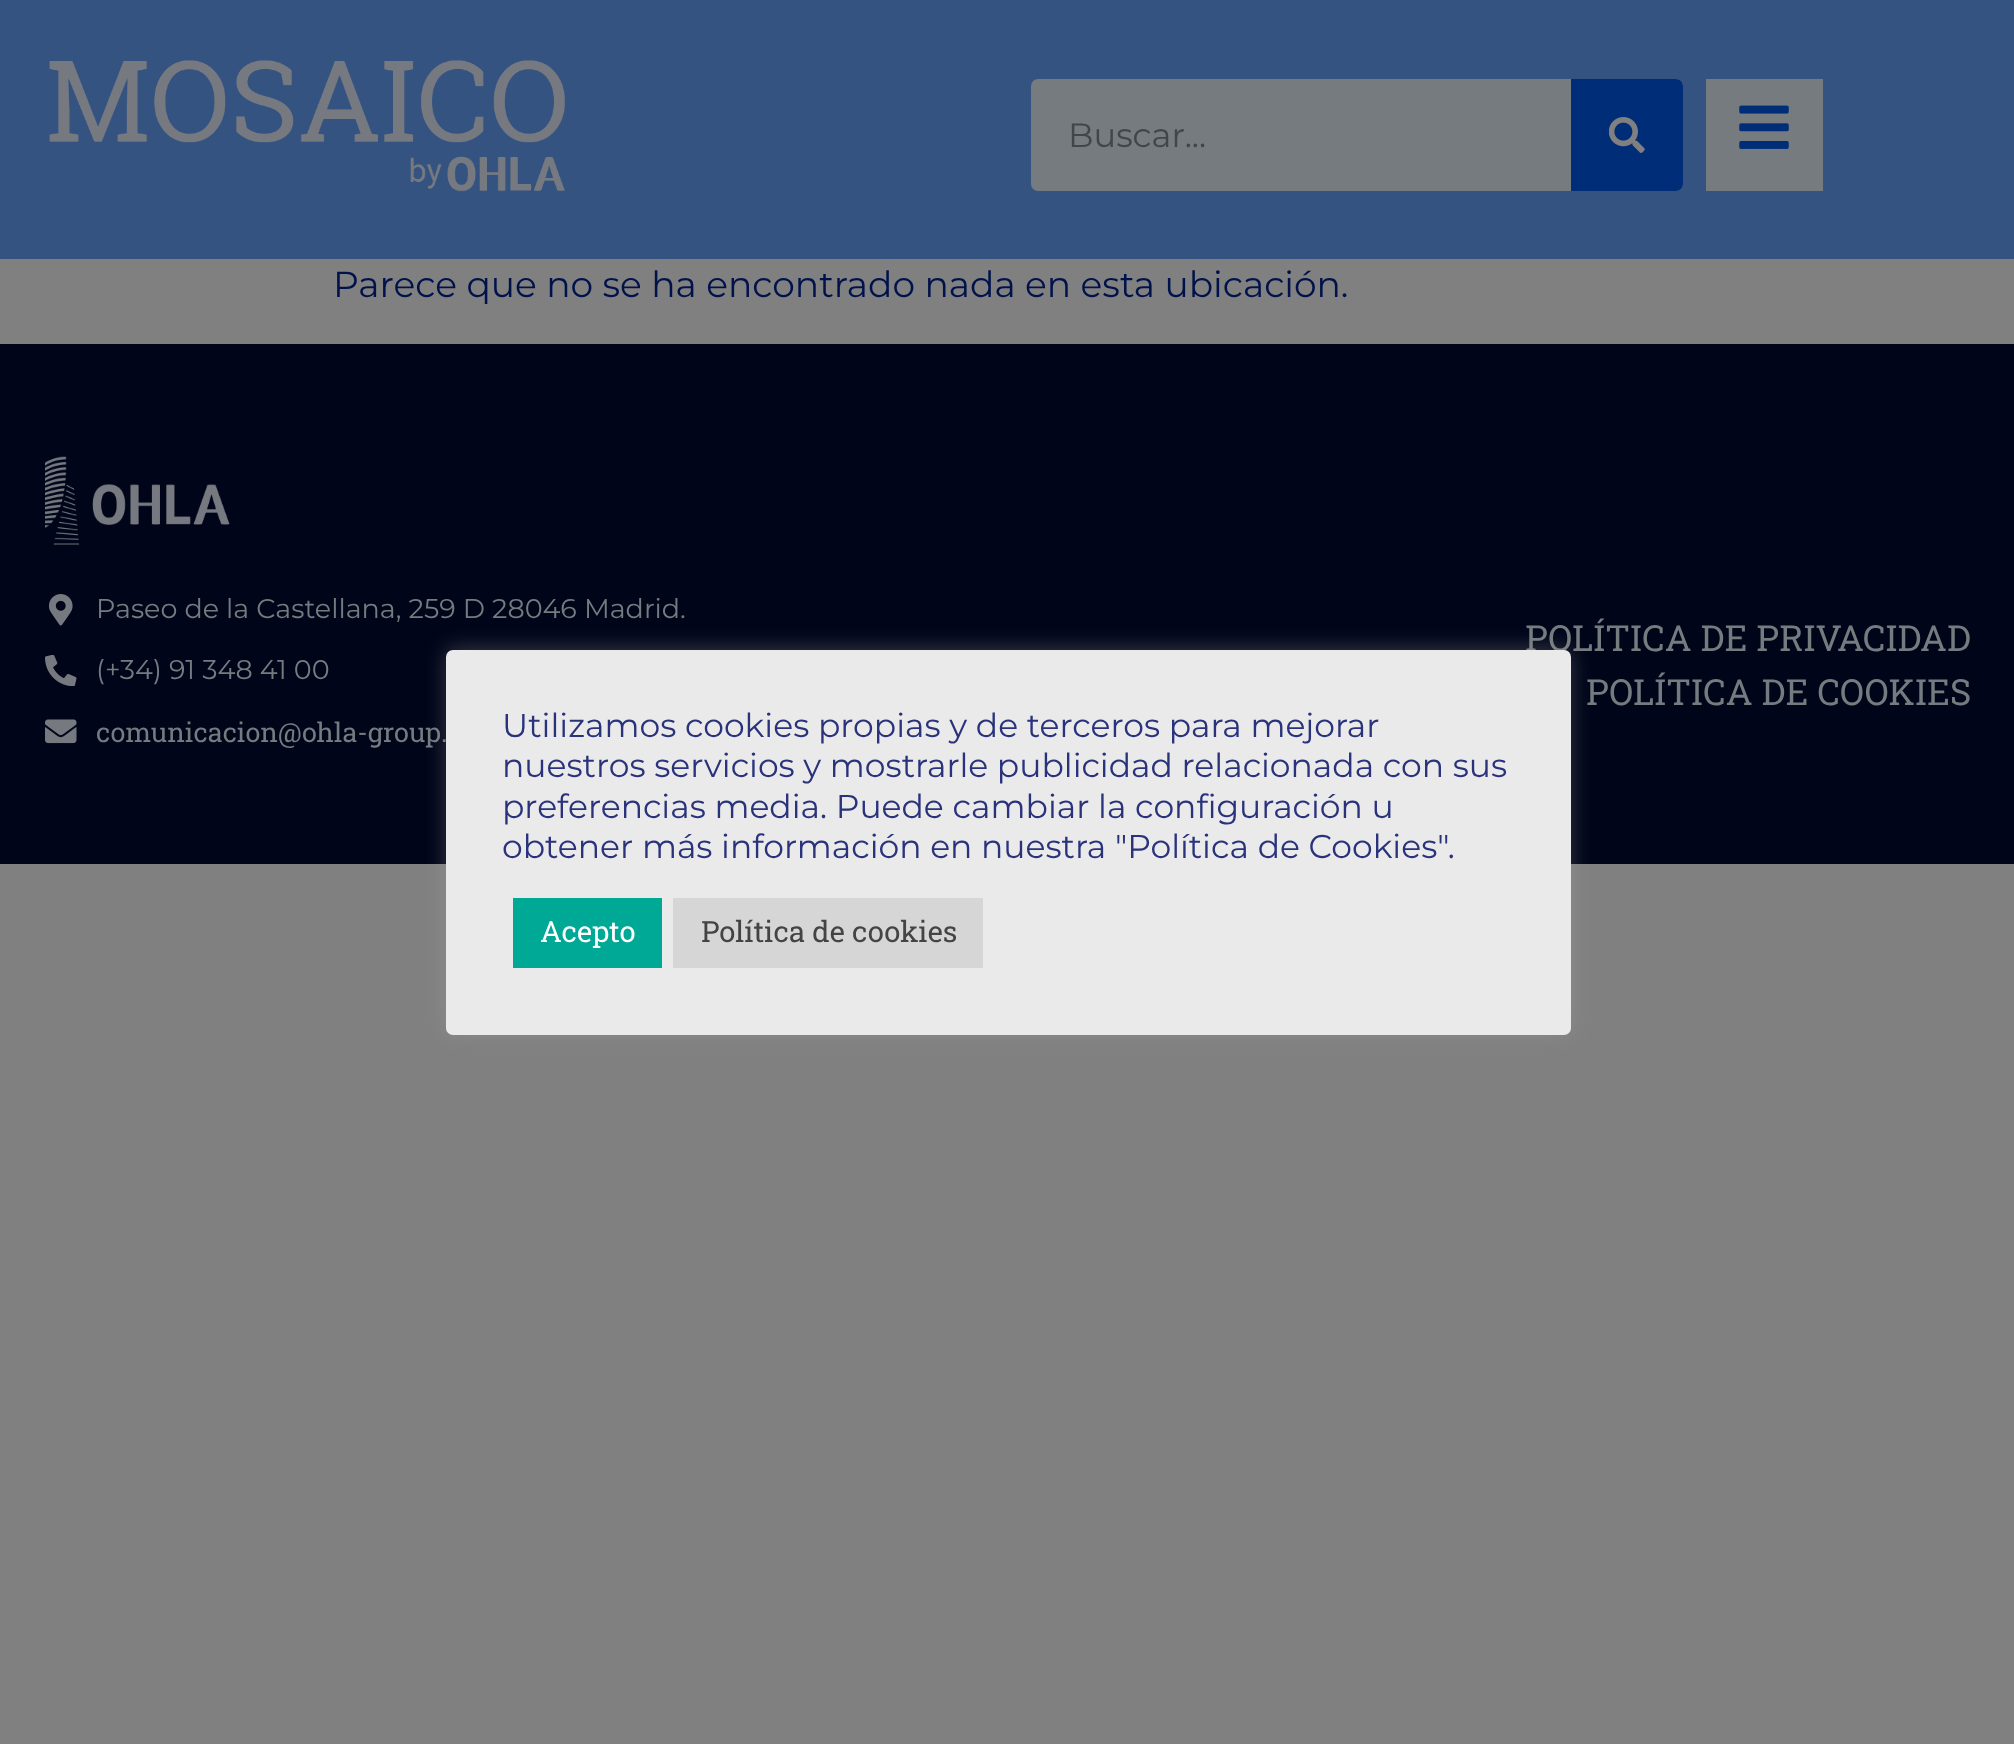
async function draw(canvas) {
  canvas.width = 2014
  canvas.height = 1744
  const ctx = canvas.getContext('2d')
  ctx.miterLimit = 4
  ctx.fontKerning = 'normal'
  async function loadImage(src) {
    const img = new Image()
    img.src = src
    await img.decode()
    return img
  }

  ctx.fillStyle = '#808080'
  ctx.fillRect(0, 0, 2014, 1744)
  ctx.fillStyle = '#355380'
  ctx.fillRect(0, 0, 2014, 259)
  ctx.drawImage(await loadImage('image0.png'), 49, 60, 516, 132)
  ctx.fillStyle = '#767b80'
  ctx.beginPath()
  ctx.roundRect(1031, 79, 652, 112, 7)
  ctx.fill()
  ctx.font = '33.75px Montserrat'
  ctx.fillStyle = '#42464a'
  ctx.fillText('Buscar...', 1068, 147)
  ctx.fillStyle = '#002d78'
  ctx.beginPath()
  ctx.roundRect(1571, 79, 112, 112, [0, 7, 7, 0])
  ctx.fill()
  ctx.drawImage(await loadImage('image1.png'), 1609, 117, 36, 36)
  ctx.fillStyle = '#767b80'
  ctx.fillRect(1706, 79, 117, 112)
  ctx.drawImage(await loadImage('image2.png'), 1739, 105, 50, 44)
  ctx.font = '36px Montserrat'
  ctx.fillStyle = '#00124b'
  ctx.fillText('Parece que no se ha encontrado nada en esta ubicación.', 333, 297)
  ctx.fillStyle = '#000519'
  ctx.fillRect(0, 344, 2014, 520)
  ctx.drawImage(await loadImage('image3.png'), 45, 456, 185, 89)
  ctx.drawImage(await loadImage('image4.png'), 48, 594, 25, 32)
  ctx.font = '27px Montserrat'
  ctx.fillStyle = '#767b80'
  ctx.fillText('Paseo de la Castellana, 259 D 28046 Madrid.', 96, 618)
  ctx.drawImage(await loadImage('image5.png'), 45, 655, 32, 31)
  ctx.fillText('(+34) 91 348 41 00', 96, 679)
  ctx.drawImage(await loadImage('image6.png'), 45, 719, 32, 25)
  ctx.font = '27px Roboto Slab'
  ctx.fillText('comunicacion@ohla-group.', 96, 742)
  ctx.font = '36px Roboto Slab'
  ctx.fillText('POLÍTICA DE PRIVACIDAD', 1525, 651)
  ctx.fillText('POLÍTICA DE COOKIES', 1586, 705)
  ctx.fillStyle = '#acabab4d'
  ctx.filter = 'blur(11px)'
  ctx.beginPath()
  ctx.roundRect(446, 648, 1125, 385, 7)
  ctx.fill()
  ctx.filter = 'none'
  ctx.fillStyle = '#eaeaea'
  ctx.beginPath()
  ctx.roundRect(446, 650, 1125, 385, 7)
  ctx.fill()
  ctx.font = '33px Montserrat'
  ctx.fillStyle = '#29327b'
  ctx.fillText('Utilizamos cookies propias y de terceros para mejorar', 502, 737)
  ctx.fillText('nuestros servicios y mostrarle publicidad relacionada con sus', 502, 777)
  ctx.fillText('preferencias media. Puede cambiar la configuración u', 502, 818)
  ctx.fillText('obtener más información en nuestra "Política de Cookies".', 502, 858)
  ctx.fillStyle = '#00a896'
  ctx.fillRect(513, 898, 149, 70)
  ctx.font = '29.25px Roboto Slab'
  ctx.fillStyle = '#fff'
  ctx.fillText('Acepto', 540, 942)
  ctx.fillStyle = '#d6d6d6'
  ctx.fillRect(673, 898, 310, 70)
  ctx.fillStyle = '#444'
  ctx.fillText('Política de cookies', 701, 942)
}

draw(document.querySelector('canvas'))
